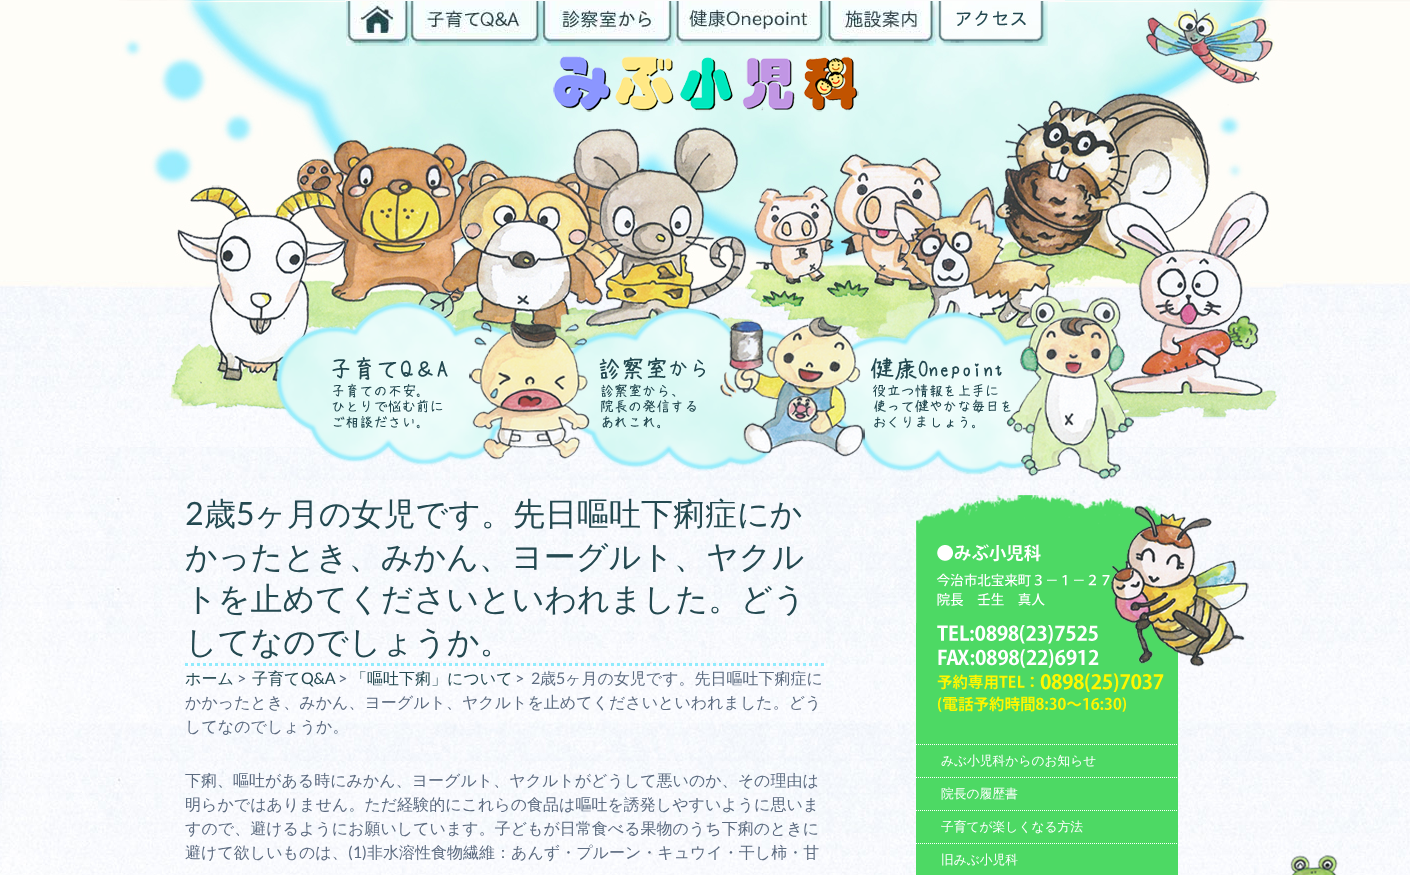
async function draw(canvas) {
  canvas.width = 1410
  canvas.height = 875
  const ctx = canvas.getContext('2d')
  ctx.miterLimit = 4
  ctx.fontKerning = 'normal'
  async function loadImage(src) {
    const img = new Image()
    img.src = src
    await img.decode()
    return img
  }

  ctx.fillStyle = '#fff'
  ctx.fillRect(0, 0, 1410, 875)
  ctx.drawImage(await loadImage('image0.png'), 0, 447, 1410, 428)
  ctx.drawImage(await loadImage('image1.png'), 0, 0, 1410, 447)
  ctx.fillStyle = '#fcfcfc'
  ctx.fillRect(345, 0, 720, 2)
  ctx.drawImage(await loadImage('image2.png'), 346, 1, 63, 45)
  ctx.drawImage(await loadImage('image3.png'), 409, 1, 134, 45)
  ctx.drawImage(await loadImage('image4.png'), 543, 1, 132, 45)
  ctx.drawImage(await loadImage('image5.png'), 675, 1, 151, 45)
  ctx.drawImage(await loadImage('image6.png'), 826, 1, 110, 45)
  ctx.drawImage(await loadImage('image7.png'), 936, 1, 112, 45)
  ctx.drawImage(await loadImage('image8.png'), 553, 56, 306, 56)
  ctx.drawImage(await loadImage('image9.png'), 275, 301, 290, 165)
  ctx.drawImage(await loadImage('image10.png'), 565, 306, 269, 165)
  ctx.drawImage(await loadImage('image11.png'), 834, 294, 300, 187)
  ctx.font = '32px Lato'
  ctx.fillStyle = '#244951'
  ctx.fillText('2', 185, 525)
  ctx.font = '500 32px WenQuanYi Zen Hei'
  ctx.fillText('歳', 204, 525)
  ctx.font = '32px Lato'
  ctx.fillText('5', 236, 525)
  ctx.font = '500 32px WenQuanYi Zen Hei'
  ctx.fillText('ヶ月の女児です。先日嘔吐下痢症にか', 254, 525)
  ctx.fillText('かったとき、みかん、ヨーグルト、ヤクル', 185, 568)
  ctx.fillText('トを止めてくださいといわれました。どう', 185, 610)
  ctx.fillText('してなのでしょうか。', 185, 653)
  ctx.beginPath()
  ctx.moveTo(185, 664.5)
  ctx.lineTo(825, 664.5)
  ctx.strokeStyle = '#90ebfd'
  ctx.lineWidth = 3
  ctx.setLineDash([3, 3])
  ctx.stroke()
  ctx.font = '500 16px WenQuanYi Zen Hei'
  ctx.fillText('ホーム', 185, 684)
  ctx.font = '16px Lato'
  ctx.fillStyle = '#5c6b80'
  ctx.fillText('>', 237, 684)
  ctx.font = '500 16px WenQuanYi Zen Hei'
  ctx.fillStyle = '#244951'
  ctx.fillText('子育て', 252, 684)
  ctx.font = '16px Lato'
  ctx.fillText('Q&A', 301, 684)
  ctx.fillStyle = '#5c6b80'
  ctx.fillText('>', 338, 684)
  ctx.font = '500 16px WenQuanYi Zen Hei'
  ctx.fillStyle = '#244951'
  ctx.fillText('「嘔吐下痢」について', 351, 684)
  ctx.font = '16px Lato'
  ctx.fillStyle = '#5c6b80'
  ctx.fillText('>', 515, 684)
  ctx.fillText('2', 531, 684)
  ctx.font = '500 16px WenQuanYi Zen Hei'
  ctx.fillText('歳', 540, 684)
  ctx.font = '16px Lato'
  ctx.fillText('5', 556, 684)
  ctx.font = '500 16px WenQuanYi Zen Hei'
  ctx.fillText('ヶ月の女児です。先日嘔吐下痢症に', 565, 684)
  ctx.fillText('かかったとき、みかん、ヨーグルト、ヤクルトを止めてくださいといわれました。どう', 185, 708)
  ctx.fillText('してなのでしょうか。', 185, 732)
  ctx.fillText('下痢、嘔吐がある時にみかん、ヨーグルト、ヤクルトがどうして悪いのか、その理由は', 185, 786)
  ctx.fillText('明らかではありません。ただ経験的にこれらの食品は嘔吐を誘発しやすいように思いま', 185, 810)
  ctx.fillText('すので、避けるようにお願いしています。子どもが日常食べる果物のうち下痢のときに', 185, 834)
  ctx.fillText('避けて欲しいものは、', 185, 858)
  ctx.font = '16px Lato'
  ctx.fillText('(1)', 348, 858)
  ctx.font = '500 16px WenQuanYi Zen Hei'
  ctx.fillText('非水溶性食物繊維：あんず・プルーン・キュウイ・干し柿・甘', 367, 858)
  ctx.drawImage(await loadImage('image12.png'), 916, 495, 262, 249)
  ctx.drawImage(await loadImage('image13.png'), 1111, 505, 138, 172)
  ctx.fillStyle = '#4dd964'
  ctx.fillRect(916, 744, 262, 131)
  ctx.beginPath()
  ctx.moveTo(916, 744.5)
  ctx.lineTo(1178, 744.5)
  ctx.strokeStyle = '#fff'
  ctx.lineWidth = 1
  ctx.setLineDash([1, 1])
  ctx.stroke()
  ctx.font = '500 12.75px WenQuanYi Zen Hei'
  ctx.fillStyle = '#fff'
  ctx.fillText('みぶ小児科からのお知らせ', 941, 765)
  ctx.beginPath()
  ctx.moveTo(916, 777.5)
  ctx.lineTo(1178, 777.5)
  ctx.stroke()
  ctx.fillText('院長の履歴書', 941, 798)
  ctx.beginPath()
  ctx.moveTo(916, 810.5)
  ctx.lineTo(1178, 810.5)
  ctx.stroke()
  ctx.fillText('子育てが楽しくなる方法', 941, 831)
  ctx.beginPath()
  ctx.moveTo(916, 843.5)
  ctx.lineTo(1178, 843.5)
  ctx.stroke()
  ctx.fillText('旧みぶ小児科', 941, 864)
  ctx.drawImage(await loadImage('image14.png'), 1290, 855, 48, 20)
}

draw(document.querySelector('canvas'))
